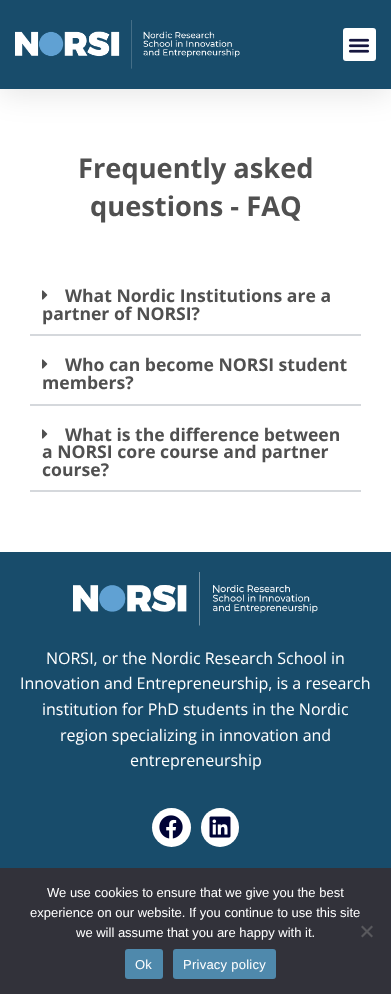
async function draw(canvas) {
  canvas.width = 391
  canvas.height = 994
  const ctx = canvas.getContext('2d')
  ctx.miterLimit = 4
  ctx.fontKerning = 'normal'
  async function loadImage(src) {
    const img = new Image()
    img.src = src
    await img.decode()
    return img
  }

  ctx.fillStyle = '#fff'
  ctx.fillRect(0, 0, 391, 994)
  ctx.fillStyle = '#0000001a'
  ctx.filter = 'blur(15px)'
  ctx.beginPath()
  ctx.rect(0, 5, 391, 89)
  ctx.fill()
  ctx.filter = 'none'
  ctx.fillStyle = '#184c6b'
  ctx.fillRect(0, 0, 391, 89)
  ctx.drawImage(await loadImage('image0.png'), 15, 20, 225, 49)
  ctx.fillStyle = '#fff'
  ctx.beginPath()
  ctx.roundRect(343, 28, 33, 33, 3)
  ctx.fill()
  ctx.drawImage(await loadImage('image1.png'), 348, 38, 22, 15)
  ctx.font = 'bold 27.25px Open Sans'
  ctx.fillStyle = '#505050'
  ctx.fillText('Frequently asked', 78, 178)
  ctx.fillText('questions - FAQ', 90, 216)
  ctx.fillStyle = '#d5d8dc'
  ctx.fillRect(30, 334, 331, 2)
  ctx.drawImage(await loadImage('image2.png'), 42, 290, 6, 10)
  ctx.font = 'bold 17.6px Open Sans'
  ctx.fillStyle = '#505050'
  ctx.fillText('What Nordic Institutions are a', 65, 302)
  ctx.fillText('partner of NORSI?', 42, 320)
  ctx.fillStyle = '#d5d8dc'
  ctx.fillRect(30, 404, 331, 2)
  ctx.drawImage(await loadImage('image2.png'), 42, 359, 6, 10)
  ctx.fillStyle = '#505050'
  ctx.fillText('Who can become NORSI student', 65, 371)
  ctx.fillText('members?', 42, 389)
  ctx.fillStyle = '#d5d8dc'
  ctx.fillRect(30, 490, 331, 2)
  ctx.drawImage(await loadImage('image2.png'), 42, 429, 6, 10)
  ctx.fillStyle = '#505050'
  ctx.fillText('What is the difference between', 65, 441)
  ctx.fillText('a NORSI core course and partner', 42, 458)
  ctx.fillText('course?', 42, 476)
  ctx.fillStyle = '#184c6b'
  ctx.fillRect(0, 552, 391, 316)
  ctx.drawImage(await loadImage('image3.png'), 73, 572, 245, 54)
  ctx.font = '16px Open Sans'
  ctx.fillStyle = '#fff'
  ctx.fillText('NORSI, or the Nordic Research School in', 46, 664)
  ctx.fillText('Innovation and Entrepreneurship, is a research', 20, 689)
  ctx.fillText('institution for PhD students in the Nordic', 42, 715)
  ctx.fillText('region specializing in innovation and', 60, 741)
  ctx.fillText('entrepreneurship', 130, 766)
  ctx.beginPath()
  ctx.arc(171.5, 827.5, 19.5, 0, 2 * Math.PI)
  ctx.fill()
  ctx.drawImage(await loadImage('image4.png'), 159, 815, 24, 24)
  ctx.beginPath()
  ctx.roundRect(201, 808, 38, 39, 19)
  ctx.fill()
  ctx.drawImage(await loadImage('image5.png'), 209, 816, 22, 22)
  ctx.fillStyle = '#32323a'
  ctx.fillRect(0, 868, 391, 126)
  ctx.font = '13px Liberation Sans'
  ctx.fillStyle = '#fff'
  ctx.fillText('We use cookies to ensure that we give you the best', 47, 897)
  ctx.fillText('experience on our website. If you continue to use this site', 30, 917)
  ctx.fillText('we will assume that you are happy with it.', 76, 937)
  ctx.fillStyle = '#59595d'
  ctx.beginPath()
  ctx.moveTo(371.5, 925.5)
  ctx.lineTo(373, 927)
  ctx.lineTo(362.5, 937.5)
  ctx.lineTo(361, 936)
  ctx.closePath()
  ctx.fill()
  ctx.beginPath()
  ctx.moveTo(361, 927)
  ctx.lineTo(362.5, 925.5)
  ctx.lineTo(373, 936)
  ctx.lineTo(371.5, 937.5)
  ctx.closePath()
  ctx.fill()
  ctx.fillStyle = '#4f89ac'
  ctx.beginPath()
  ctx.roundRect(125, 949, 38, 30, 3)
  ctx.fill()
  ctx.letterSpacing = '0.25px'
  ctx.fillStyle = '#fff'
  ctx.fillText('Ok', 135, 969)
  ctx.fillStyle = '#4f89ac'
  ctx.beginPath()
  ctx.roundRect(173, 949, 103, 30, 3)
  ctx.fill()
  ctx.fillStyle = '#fff'
  ctx.fillText('Privacy policy', 183, 969)
}

draw(document.querySelector('canvas'))
